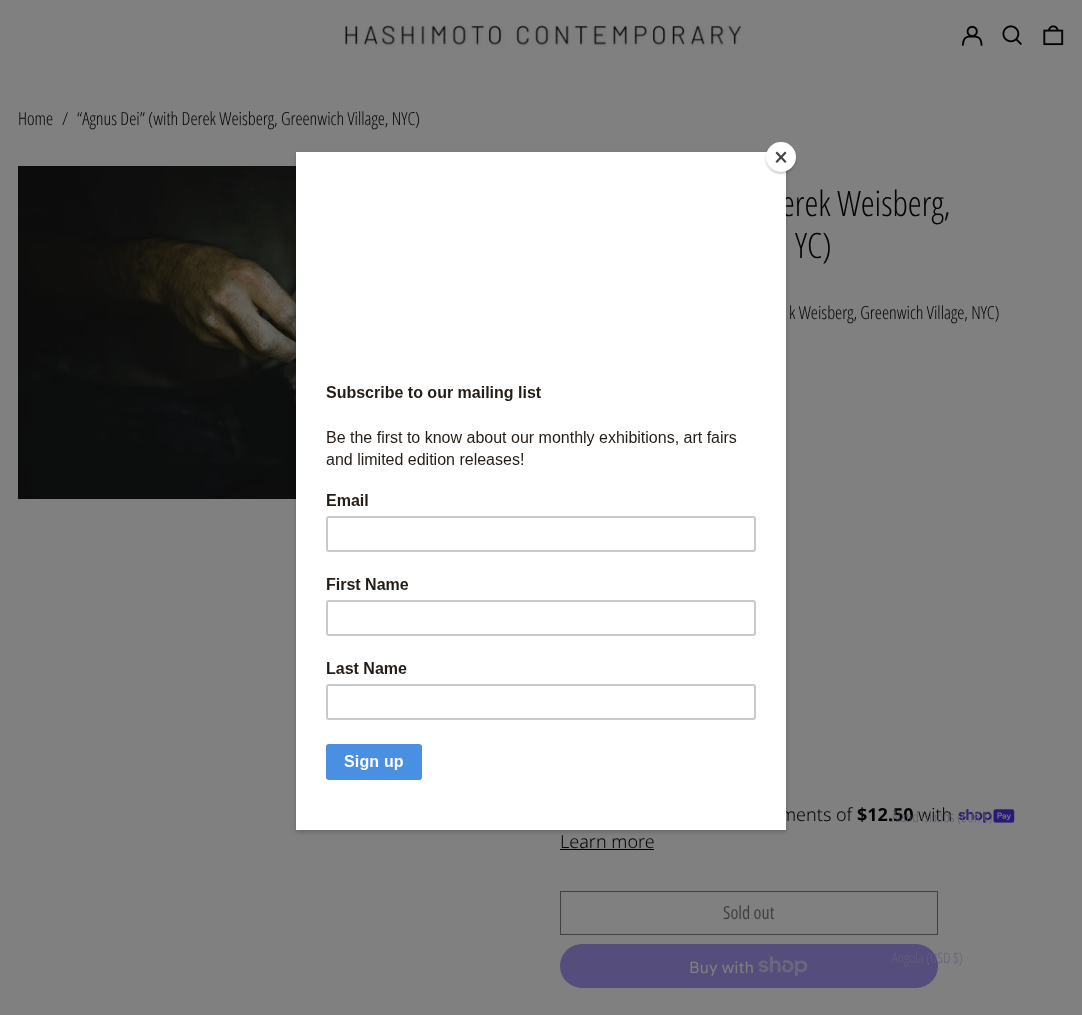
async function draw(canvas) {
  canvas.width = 1082
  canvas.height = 1015
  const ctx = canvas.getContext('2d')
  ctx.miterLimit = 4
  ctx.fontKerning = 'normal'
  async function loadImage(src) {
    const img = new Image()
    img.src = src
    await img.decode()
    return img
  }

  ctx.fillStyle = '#808080'
  ctx.fillRect(0, 0, 1082, 1015)
  ctx.drawImage(await loadImage('image0.png'), 345, 25, 397, 22)
  ctx.drawImage(await loadImage('image1.png'), 961, 25, 22, 21)
  ctx.drawImage(await loadImage('image2.png'), 1002, 25, 20, 20)
  ctx.drawImage(await loadImage('image3.png'), 1043, 25, 21, 21)
  ctx.font = '300 18px Open Sans Condensed'
  ctx.fillStyle = '#020202'
  ctx.fillText('Home', 18, 125)
  ctx.fillText('/', 62, 125)
  ctx.fillText('“Agnus Dei” (with Derek Weisberg, Greenwich Village, NYC)', 77, 125)
  ctx.drawImage(await loadImage('image4.png'), 18, 166, 278, 333)
  ctx.font = '300 35px Open Sans Condensed'
  ctx.fillText('erek Weisberg,', 781, 216)
  ctx.fillText('YC)', 795, 258)
  ctx.font = '300 18px Open Sans Condensed'
  ctx.fillText('k Weisberg, Greenwich Village, NYC)', 789, 319)
  ctx.font = '300 18px Noto Sans'
  ctx.fillText('ments of', 780, 821)
  ctx.font = 'bold 18px Noto Sans'
  ctx.fillText('$12.50', 857, 821)
  ctx.font = '300 18px Noto Sans'
  ctx.fillText('with', 918, 821)
  ctx.drawImage(await loadImage('image5.png'), 958, 809, 57, 14)
  ctx.fillText('Learn more', 560, 848)
  ctx.fillRect(560, 849, 94, 1)
  ctx.strokeStyle = '#414141'
  ctx.strokeRect(560.5, 891.5, 377, 43)
  ctx.font = '18px Open Sans Condensed'
  ctx.fillStyle = '#414141'
  ctx.fillText('Sold out', 723, 919)
  ctx.fillStyle = '#554d7b'
  ctx.beginPath()
  ctx.roundRect(560, 944, 378, 44, 22)
  ctx.fill()
  ctx.font = '16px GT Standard'
  ctx.fillStyle = '#808080'
  ctx.fillText('Buy with', 689, 973)
  ctx.drawImage(await loadImage('image6.png'), 758, 956, 50, 20)
  ctx.font = '300 14.5px Open Sans Condensed'
  ctx.fillStyle = '#5d5b69'
  ctx.fillText('Åland Islands (EUR €)', 892, 822)
  ctx.fillStyle = '#65607d'
  ctx.fillText('Angola (USD $)', 892, 963)
  ctx.fillStyle = '#00000033'
  ctx.filter = 'blur(2px)'
  ctx.beginPath()
  ctx.rect(296, 154, 490, 678)
  ctx.fill()
  ctx.filter = 'none'
  ctx.drawImage(await loadImage('image7.png'), 296, 152, 490, 678)
  ctx.filter = 'blur(1px)'
  ctx.beginPath()
  ctx.roundRect(766, 144, 30, 30, 15)
  ctx.fill()
  ctx.filter = 'none'
  ctx.fillStyle = '#fff'
  ctx.beginPath()
  ctx.arc(781, 157, 15, 0, 2 * Math.PI)
  ctx.fill()
  ctx.fillStyle = '#414141'
  ctx.beginPath()
  ctx.moveTo(785, 151.5)
  ctx.lineTo(786.5, 153)
  ctx.lineTo(777, 163)
  ctx.lineTo(775.5, 161.5)
  ctx.closePath()
  ctx.fill()
  ctx.beginPath()
  ctx.moveTo(775.5, 153)
  ctx.lineTo(777, 151.5)
  ctx.lineTo(786.5, 161.5)
  ctx.lineTo(785, 163)
  ctx.closePath()
  ctx.fill()
}

draw(document.querySelector('canvas'))
